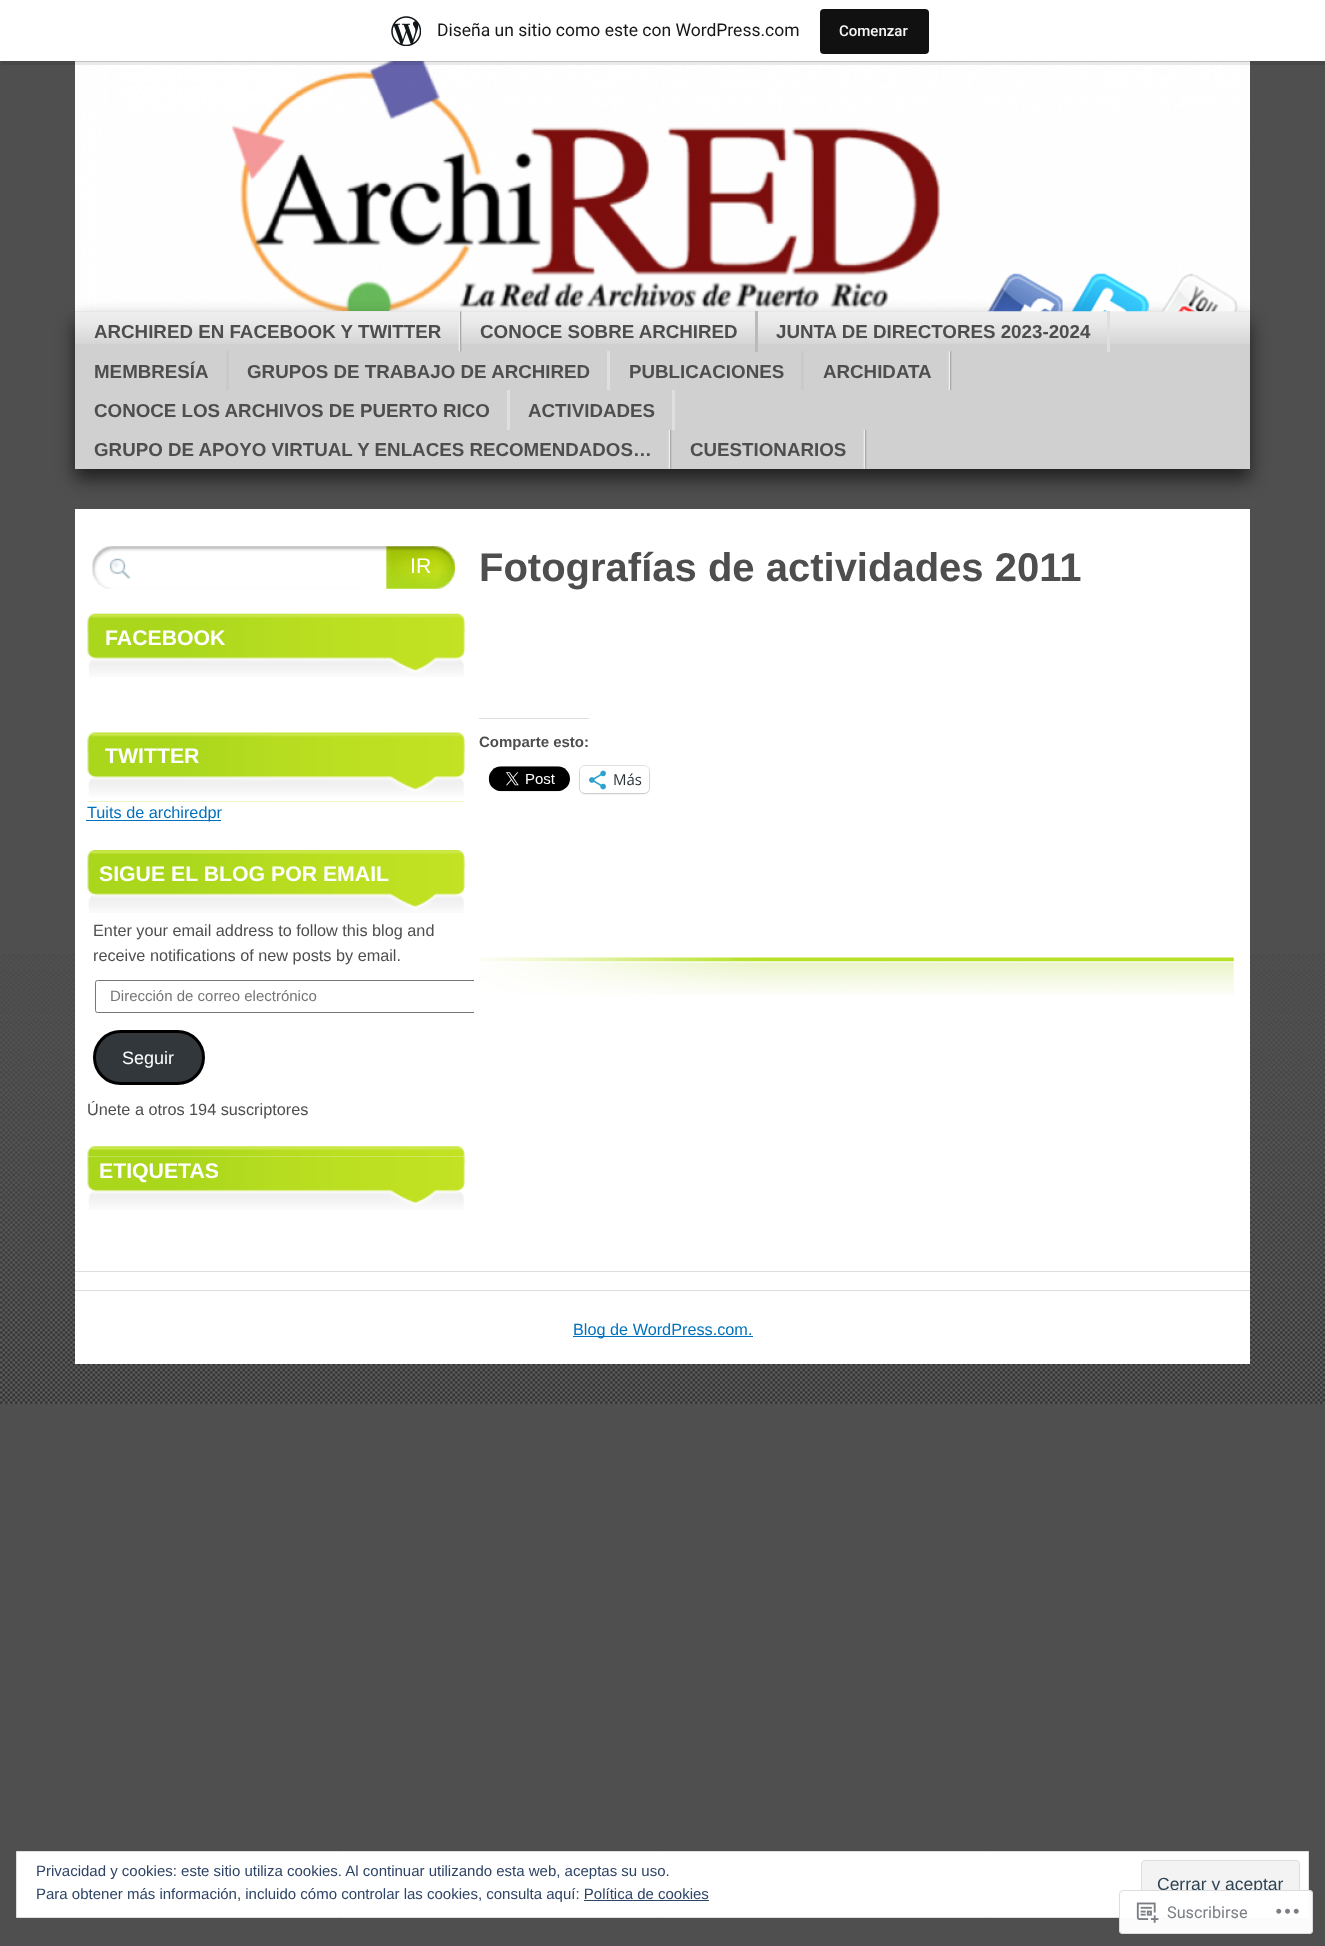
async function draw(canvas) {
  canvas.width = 1325
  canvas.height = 1946
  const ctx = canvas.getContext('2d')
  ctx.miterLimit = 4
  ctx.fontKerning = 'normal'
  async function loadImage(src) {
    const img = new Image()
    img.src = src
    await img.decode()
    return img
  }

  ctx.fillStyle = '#4f4f4f'
  ctx.fillRect(0, 0, 1325, 1946)
  ctx.drawImage(await loadImage('image0.png'), 0, 954, 1325, 450)
  ctx.drawImage(await loadImage('image2.png'), 75, 61, 1175, 250)
  ctx.fillStyle = '#00000014'
  ctx.beginPath()
  ctx.moveTo(1, 61)
  ctx.lineTo(1, 65)
  ctx.lineTo(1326, 65)
  ctx.lineTo(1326, 4)
  ctx.lineTo(1325, 4)
  ctx.lineTo(1325, 61)
  ctx.closePath()
  ctx.fill()
  ctx.fillStyle = '#fff'
  ctx.fillRect(0, 0, 1325, 61)
  ctx.drawImage(await loadImage('image1.png'), 391, 16, 30, 30)
  ctx.font = '17.5px Roboto'
  ctx.fillStyle = '#171717'
  ctx.fillText('Diseña un sitio como este con WordPress.com', 437, 36)
  ctx.fillStyle = '#111'
  ctx.beginPath()
  ctx.roundRect(820, 9, 109, 45, 4)
  ctx.fill()
  ctx.font = '500 15px Roboto'
  ctx.fillStyle = '#f6f7f7'
  ctx.fillText('Comenzar', 839, 36)
  ctx.fillStyle = '#00000099'
  ctx.filter = 'blur(9px)'
  ctx.beginPath()
  ctx.rect(75, 321, 1175, 158)
  ctx.fill()
  ctx.filter = 'none'
  ctx.fillStyle = '#d0d0d0'
  ctx.fillRect(75, 311, 1175, 158)
  ctx.drawImage(await loadImage('image3.png'), 987, 273, 76, 39)
  ctx.drawImage(await loadImage('image4.png'), 1071, 273, 78, 39)
  ctx.drawImage(await loadImage('image5.png'), 1161, 273, 77, 39)
  ctx.drawImage(await loadImage('image6.png'), 75, 311, 1175, 33)
  ctx.drawImage(await loadImage('image7.png'), 458, 311, 4, 41)
  ctx.font = 'bold 18.75px Liberation Sans'
  ctx.fillStyle = '#4e4e4e'
  ctx.fillText('ARCHIRED EN FACEBOOK Y TWITTER', 94, 338)
  ctx.fillStyle = '#bababa'
  ctx.fillRect(755, 311, 3, 41)
  ctx.fillStyle = '#4e4e4e'
  ctx.fillText('CONOCE SOBRE ARCHIRED', 480, 338)
  ctx.fillStyle = '#dfdfdf'
  ctx.fillRect(1107, 311, 3, 41)
  ctx.fillStyle = '#4e4e4e'
  ctx.fillText('JUNTA DE DIRECTORES 2023-2024', 776, 338)
  ctx.fillStyle = '#cacaca'
  ctx.fillRect(226, 351, 3, 39)
  ctx.fillStyle = '#4e4e4e'
  ctx.fillText('MEMBRESÍA', 94, 378)
  ctx.fillStyle = '#dfdfdf'
  ctx.fillRect(607, 351, 3, 39)
  ctx.fillStyle = '#4e4e4e'
  ctx.fillText('GRUPOS DE TRABAJO DE ARCHIRED', 247, 378)
  ctx.fillStyle = '#cacaca'
  ctx.fillRect(801, 351, 3, 39)
  ctx.fillStyle = '#4e4e4e'
  ctx.fillText('PUBLICACIONES', 629, 378)
  ctx.drawImage(await loadImage('image8.png'), 948, 351, 4, 39)
  ctx.fillText('ARCHIDATA', 823, 378)
  ctx.fillStyle = '#dfdfdf'
  ctx.fillRect(507, 390, 3, 40)
  ctx.fillStyle = '#4e4e4e'
  ctx.fillText('CONOCE LOS ARCHIVOS DE PUERTO RICO', 94, 417)
  ctx.fillStyle = '#dfdfdf'
  ctx.fillRect(672, 390, 3, 40)
  ctx.fillStyle = '#4e4e4e'
  ctx.fillText('ACTIVIDADES', 528, 417)
  ctx.drawImage(await loadImage('image9.png'), 668, 430, 4, 39)
  ctx.fillText('GRUPO DE APOYO VIRTUAL Y ENLACES RECOMENDADOS…', 94, 456)
  ctx.drawImage(await loadImage('image9.png'), 863, 430, 4, 39)
  ctx.fillText('CUESTIONARIOS', 690, 456)
  ctx.fillStyle = '#fff'
  ctx.fillRect(75, 509, 1175, 762)
  ctx.drawImage(await loadImage('image10.png'), 92, 546, 295, 43)
  ctx.drawImage(await loadImage('image11.png'), 386, 546, 69, 43)
  ctx.font = '21.25px Liberation Sans'
  ctx.fillText('IR', 410, 573)
  ctx.drawImage(await loadImage('image12.png'), 87, 613, 378, 11)
  ctx.drawImage(await loadImage('image13.png'), 87, 623, 378, 54)
  ctx.font = 'bold 21.25px Liberation Sans'
  ctx.fillText('FACEBOOK', 105, 645)
  ctx.drawImage(await loadImage('image14.png'), 87, 732, 378, 70)
  ctx.fillRect(87, 743, 378, 58)
  ctx.drawImage(await loadImage('image15.png'), 87, 742, 378, 55)
  ctx.fillText('TWITTER', 105, 763)
  ctx.fillStyle = '#0071bb'
  ctx.fillRect(86, 820, 135, 1)
  ctx.font = '16.25px Liberation Sans'
  ctx.fillText('Tuits de archiredpr', 87, 818)
  ctx.drawImage(await loadImage('image16.png'), 87, 850, 378, 10)
  ctx.drawImage(await loadImage('image17.png'), 87, 860, 378, 53)
  ctx.font = 'bold 21.25px Liberation Sans'
  ctx.fillStyle = '#fff'
  ctx.fillText('SIGUE EL BLOG POR EMAIL', 99, 881)
  ctx.font = '16.25px Liberation Sans'
  ctx.fillStyle = '#4e4e4e'
  ctx.fillText('Enter your email address to follow this blog and', 93, 936)
  ctx.fillText('receive notifications of new posts by email.', 93, 961)
  ctx.save()
  ctx.beginPath()
  ctx.rect(86, 528, 388, 706)
  ctx.clip()
  ctx.beginPath()
  ctx.roundRect(95.5, 980.5, 383, 32, 2)
  ctx.strokeStyle = '#767676'
  ctx.stroke()
  ctx.restore()
  ctx.font = '15px Liberation Sans'
  ctx.fillStyle = '#757575'
  ctx.fillText('Dirección de correo electrónico', 110, 1001)
  ctx.fillStyle = '#32373c'
  ctx.beginPath()
  ctx.roundRect(94.5, 1031.5, 109, 52, 26)
  ctx.fill()
  ctx.strokeStyle = '#000'
  ctx.lineWidth = 3
  ctx.stroke()
  ctx.font = '18px Liberation Sans'
  ctx.fillStyle = '#fff'
  ctx.fillText('Seguir', 122, 1064)
  ctx.font = '16.25px Liberation Sans'
  ctx.fillStyle = '#4e4e4e'
  ctx.fillText('Únete a otros 194 suscriptores', 87, 1115)
  ctx.drawImage(await loadImage('image18.png'), 87, 1146, 378, 10)
  ctx.drawImage(await loadImage('image19.png'), 87, 1156, 378, 54)
  ctx.font = 'bold 21.25px Liberation Sans'
  ctx.fillStyle = '#fff'
  ctx.fillText('ETIQUETAS', 99, 1178)
  ctx.font = 'bold 40px Liberation Sans'
  ctx.fillStyle = '#4e4e4e'
  ctx.fillText('Fotografías de actividades 2011', 479, 581)
  ctx.fillStyle = '#dcdcde'
  ctx.fillRect(479, 718, 110, 1)
  ctx.font = 'bold 15px Liberation Sans'
  ctx.fillStyle = '#4e4e4e'
  ctx.fillText('Comparte esto:', 479, 747)
  ctx.drawImage(await loadImage('image20.png'), 488, 766, 82, 26)
  ctx.beginPath()
  ctx.roundRect(579.5, 765.5, 70, 28, 5.5)
  ctx.strokeStyle = '#e0e0e0'
  ctx.lineWidth = 1
  ctx.stroke()
  ctx.fillStyle = '#0000001f'
  ctx.filter = 'blur(1px)'
  ctx.beginPath()
  ctx.roundRect(580, 768, 69, 26, 5)
  ctx.fill()
  ctx.filter = 'none'
  ctx.fillStyle = '#fff'
  ctx.beginPath()
  ctx.roundRect(580, 766, 69, 27, 5)
  ctx.fill()
  ctx.drawImage(await loadImage('image21.png'), 589, 770, 17, 20)
  ctx.font = '15px Open Sans'
  ctx.fillStyle = '#2c3338'
  ctx.fillText('Más', 613, 785)
  ctx.drawImage(await loadImage('image22.png'), 479, 957, 755, 38)
  ctx.fillStyle = '#fff'
  ctx.fillRect(75, 1272, 1175, 92)
  ctx.fillStyle = '#ddd'
  ctx.fillRect(75, 1271, 1175, 1)
  ctx.fillRect(75, 1290, 1175, 1)
  ctx.fillStyle = '#0071bb'
  ctx.fillRect(573, 1336, 180, 1)
  ctx.font = '16.25px Liberation Sans'
  ctx.fillText('Blog de WordPress.com.', 573, 1335)
  ctx.fillStyle = '#fff'
  ctx.beginPath()
  ctx.rect(16.5, 1851.5, 1292, 66)
  ctx.fill()
  ctx.strokeStyle = '#dedede'
  ctx.stroke()
  ctx.font = '15px Liberation Sans'
  ctx.fillStyle = '#2e4467'
  ctx.fillText('Privacidad y cookies: este sitio utiliza cookies. Al continuar utilizando esta web, aceptas su uso.', 36, 1876)
  ctx.fillText('Para obtener más información, incluido cómo controlar las cookies, consulta aquí: Política de cookies', 36, 1899)
  ctx.fillStyle = '#f3f3f3'
  ctx.beginPath()
  ctx.roundRect(1141.5, 1860.5, 158, 48, 3.5)
  ctx.fill()
  ctx.stroke()
  ctx.font = '17.5px Liberation Sans'
  ctx.fillStyle = '#2e4453'
  ctx.fillText('Cerrar y aceptar', 1157, 1890)
  ctx.fillStyle = '#2e4467'
  ctx.fillRect(584, 1900, 125, 1)
  ctx.fillStyle = '#fffffffa'
  ctx.beginPath()
  ctx.roundRect(1119, 1890, 194, 44, 4)
  ctx.fill()
  ctx.beginPath()
  ctx.roundRect(1119.5, 1890.5, 193, 43, 3.5)
  ctx.strokeStyle = '#dcdcdefa'
  ctx.stroke()
  ctx.drawImage(await loadImage('image23.png'), 1136, 1902, 23, 21)
  ctx.font = '16.25px Roboto'
  ctx.fillStyle = '#7b7f84'
  ctx.fillText('Suscribirse', 1167, 1918)
  ctx.drawImage(await loadImage('image24.png'), 1276, 1908, 23, 6)
}

draw(document.querySelector('canvas'))
